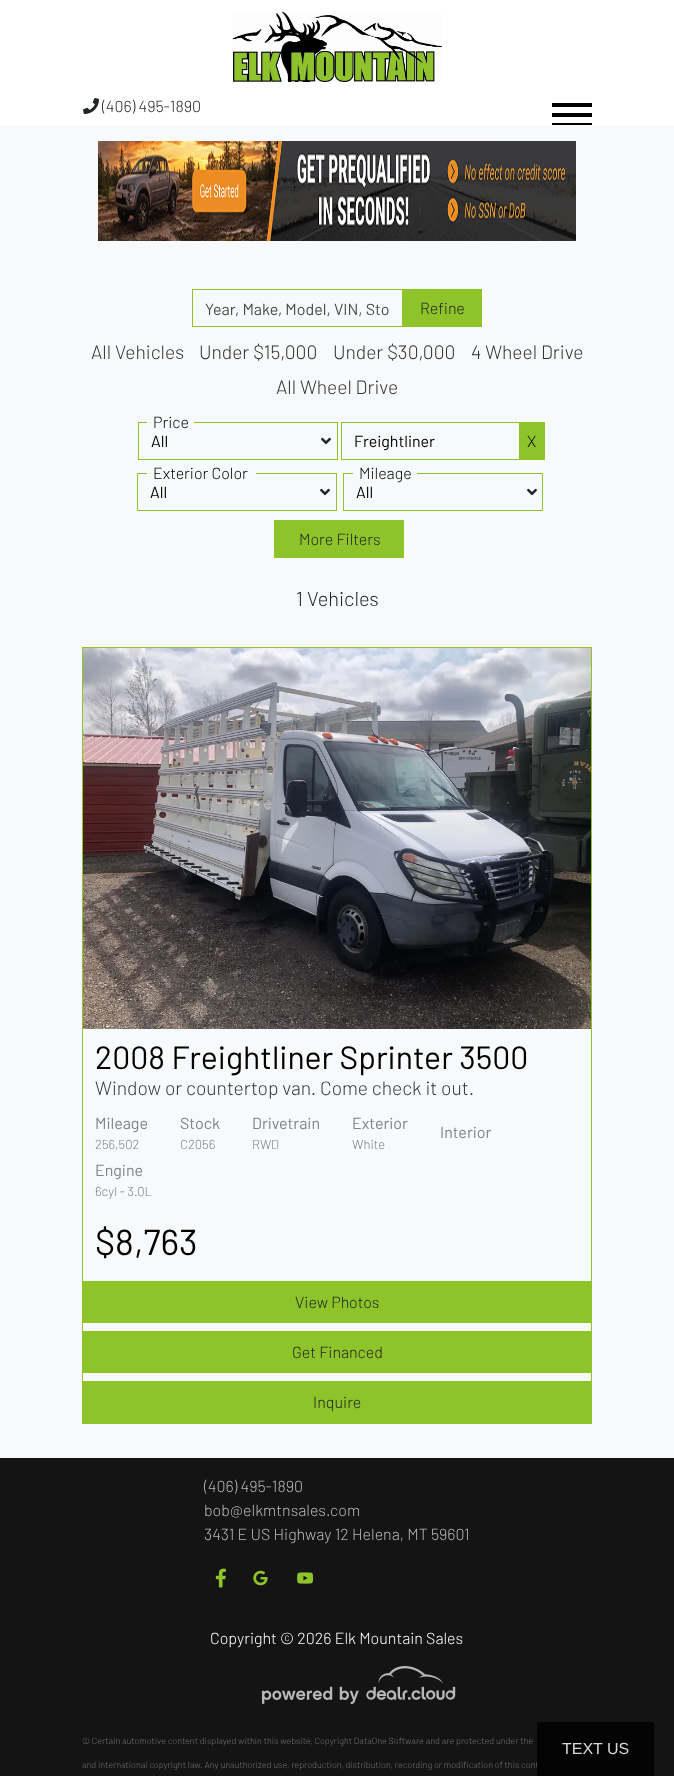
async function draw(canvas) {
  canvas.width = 674
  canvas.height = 1776
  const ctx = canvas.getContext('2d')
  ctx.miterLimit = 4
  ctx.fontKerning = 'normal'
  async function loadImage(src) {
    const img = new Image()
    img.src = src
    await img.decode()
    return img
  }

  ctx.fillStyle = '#f8f9fa'
  ctx.fillRect(0, 0, 674, 1776)
  ctx.fillStyle = '#fff'
  ctx.fillRect(0, 0, 674, 125)
  ctx.drawImage(await loadImage('image0.png'), 232, 11, 210, 71)
  ctx.drawImage(await loadImage('image1.png'), 83, 98, 16, 16)
  ctx.font = '300 16px Barlow'
  ctx.fillStyle = '#212529'
  ctx.fillText('(406) 495-1890', 102, 112)
  ctx.fillStyle = '#000'
  ctx.fillRect(552, 113, 40, 4)
  ctx.fillRect(552, 103, 40, 4)
  ctx.fillRect(552, 123, 40, 2)
  ctx.drawImage(await loadImage('image2.png'), 98, 141, 478, 100)
  ctx.fillStyle = '#8ec32a'
  ctx.fillRect(192, 289, 210, 1)
  ctx.fillRect(192, 326, 210, 1)
  ctx.fillRect(192, 289, 1, 38)
  ctx.font = '16px Barlow'
  ctx.fillStyle = '#4a4b4b'
  ctx.fillText('Year, Make, Model, VIN, Sto', 205, 315)
  ctx.fillStyle = '#8ec32a'
  ctx.fillRect(402, 289, 80, 38)
  ctx.font = '300 16px Barlow'
  ctx.fillStyle = '#212529'
  ctx.fillText('Refine', 420, 314)
  ctx.font = '300 19.25px Barlow'
  ctx.fillStyle = '#323232'
  ctx.fillText('All Vehicles', 91, 359)
  ctx.fillText('Under $15,000', 199, 359)
  ctx.fillText('Under $30,000', 333, 359)
  ctx.fillText('4 Wheel Drive', 471, 359)
  ctx.fillText('All Wheel Drive', 276, 394)
  ctx.strokeStyle = '#8ec32a'
  ctx.strokeRect(138.5, 422.5, 199, 37)
  ctx.fillStyle = '#f8f9fa'
  ctx.fillRect(147, 422, 47, 1)
  ctx.font = '300 16px Barlow'
  ctx.fillStyle = '#000'
  ctx.fillText('Price', 153, 428)
  ctx.font = '16px Barlow'
  ctx.fillText('All', 151, 447)
  ctx.drawImage(await loadImage('image3.png'), 321, 437, 10, 8)
  ctx.strokeRect(341.5, 422.5, 199, 37)
  ctx.fillText('Freightliner', 354, 447)
  ctx.fillStyle = '#8ec32a'
  ctx.fillRect(519, 422, 26, 38)
  ctx.font = '300 16px Barlow'
  ctx.fillStyle = '#000'
  ctx.fillText('X', 527, 447)
  ctx.strokeRect(137.5, 473.5, 199, 37)
  ctx.fillStyle = '#f8f9fa'
  ctx.fillRect(147, 473, 109, 1)
  ctx.fillStyle = '#000'
  ctx.fillText('Exterior Color', 153, 479)
  ctx.font = '16px Barlow'
  ctx.fillText('All', 150, 498)
  ctx.drawImage(await loadImage('image3.png'), 320, 488, 10, 8)
  ctx.strokeRect(343.5, 473.5, 199, 37)
  ctx.fillStyle = '#f8f9fa'
  ctx.fillRect(353, 473, 64, 1)
  ctx.font = '300 16px Barlow'
  ctx.fillStyle = '#000'
  ctx.fillText('Mileage', 359, 479)
  ctx.font = '16px Barlow'
  ctx.fillText('All', 356, 498)
  ctx.drawImage(await loadImage('image3.png'), 527, 488, 10, 8)
  ctx.fillStyle = '#8ec32a'
  ctx.fillRect(274, 520, 130, 38)
  ctx.font = '300 16px Barlow'
  ctx.fillStyle = '#212529'
  ctx.fillText('More Filters', 299, 545)
  ctx.font = '300 20px Barlow'
  ctx.fillText('1 Vehicles', 296, 606)
  ctx.strokeRect(82.5, 647.5, 509, 776)
  ctx.drawImage(await loadImage('image4.png'), 83, 648, 508, 381)
  ctx.font = '32px Barlow'
  ctx.fillStyle = '#000'
  ctx.fillText('2008 Freightliner Sprinter 3500', 95, 1069)
  ctx.font = '300 19.25px Barlow'
  ctx.fillStyle = '#343a40'
  ctx.fillText('Window or countertop van. Come check it out.', 95, 1095)
  ctx.font = '16px Barlow'
  ctx.fillStyle = '#7e8388'
  ctx.fillText('Mileage', 95, 1129)
  ctx.font = '300 13px Barlow'
  ctx.fillText('256,502', 95, 1149)
  ctx.font = '16px Barlow'
  ctx.fillText('Stock', 180, 1129)
  ctx.font = '300 13px Barlow'
  ctx.fillText('C2056', 180, 1149)
  ctx.font = '16px Barlow'
  ctx.fillText('Drivetrain', 252, 1129)
  ctx.font = '300 13px Barlow'
  ctx.fillText('RWD', 252, 1149)
  ctx.font = '16px Barlow'
  ctx.fillText('Exterior', 352, 1129)
  ctx.font = '300 13px Barlow'
  ctx.fillText('White', 352, 1149)
  ctx.font = '16px Barlow'
  ctx.fillText('Interior', 440, 1138)
  ctx.fillText('Engine', 95, 1176)
  ctx.font = '300 13px Barlow'
  ctx.fillText('6cyl - 3.0L', 95, 1196)
  ctx.font = '36px Barlow'
  ctx.fillStyle = '#000'
  ctx.fillText('$8,763', 95, 1255)
  ctx.fillStyle = '#8ec32a'
  ctx.fillRect(83, 1281, 508, 42)
  ctx.font = '300 16px Barlow'
  ctx.fillStyle = '#212529'
  ctx.fillText('View Photos', 295, 1308)
  ctx.fillStyle = '#8ec32a'
  ctx.fillRect(83, 1331, 508, 42)
  ctx.fillStyle = '#212529'
  ctx.fillText('Get Financed', 292, 1358)
  ctx.fillStyle = '#8ec32a'
  ctx.fillRect(83, 1381, 508, 42)
  ctx.fillStyle = '#212529'
  ctx.fillText('Inquire', 313, 1408)
  ctx.fillStyle = '#141414'
  ctx.fillRect(0, 1458, 674, 318)
  ctx.fillStyle = '#b9b9b9'
  ctx.fillText('(406) 495-1890', 204, 1492)
  ctx.fillText('bob@elkmtnsales.com', 204, 1516)
  ctx.fillText('3431 E US Highway 12 Helena, MT 59601', 204, 1540)
  ctx.drawImage(await loadImage('image5.png'), 215, 1568, 11, 20)
  ctx.drawImage(await loadImage('image6.png'), 253, 1570, 15, 16)
  ctx.drawImage(await loadImage('image7.png'), 297, 1572, 17, 12)
  ctx.fillStyle = '#fff'
  ctx.fillText('Copyright © 2026 Elk Mountain Sales', 210, 1644)
  ctx.drawImage(await loadImage('image8.png'), 262, 1666, 194, 38)
  ctx.font = '300 9px Barlow'
  ctx.fillStyle = '#727272'
  ctx.fillText('© Certain automotive content displayed within this website, Copyright DataOne Software and are protected under the', 82, 1744)
  ctx.fillText('and international copyright law. Any unauthorized use, reproduction, distribution, recording or modification of this cont', 82, 1768)
  ctx.fillStyle = '#000000d9'
  ctx.beginPath()
  ctx.roundRect(537, 1722, 117, 54, [2, 2, 0, 0])
  ctx.fill()
  ctx.font = '16px Liberation Sans'
  ctx.fillStyle = '#d9d9d9'
  ctx.fillText('TEXT US', 562, 1754)
}

draw(document.querySelector('canvas'))
